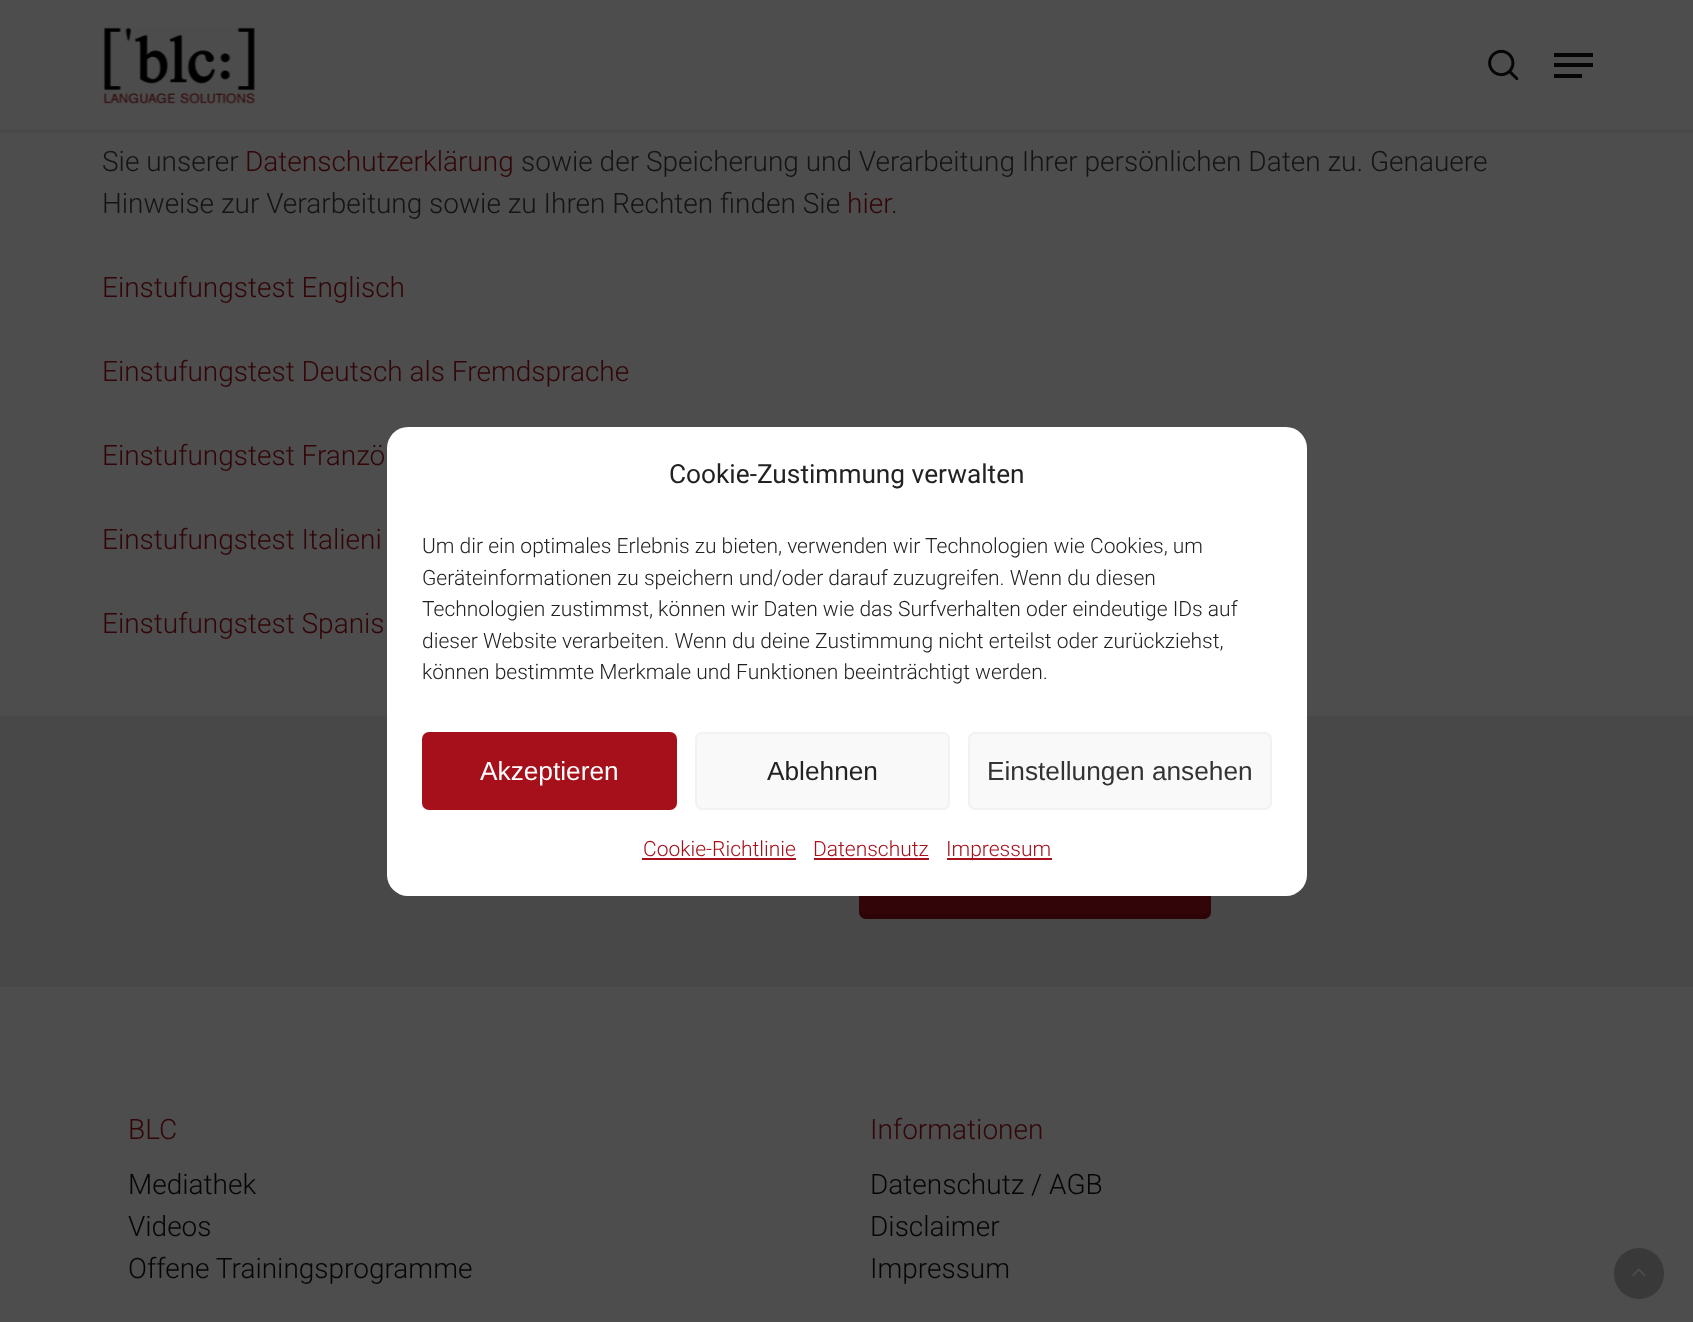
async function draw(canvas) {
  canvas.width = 1693
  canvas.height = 1322
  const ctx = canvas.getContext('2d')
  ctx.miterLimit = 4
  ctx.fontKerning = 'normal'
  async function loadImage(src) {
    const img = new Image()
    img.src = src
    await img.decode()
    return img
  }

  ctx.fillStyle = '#4d4d4d'
  ctx.fillRect(0, 0, 1693, 1322)
  ctx.fillStyle = '#00000038'
  ctx.filter = 'blur(2.5px)'
  ctx.beginPath()
  ctx.rect(0, -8, 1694, 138)
  ctx.fill()
  ctx.filter = 'none'
  ctx.fillStyle = '#4d4d4d'
  ctx.fillRect(0, 0, 1693, 130)
  ctx.drawImage(await loadImage('image0.png'), 103, 27, 152, 77)
  ctx.drawImage(await loadImage('image1.png'), 1488, 49, 31, 32)
  ctx.fillStyle = '#050505'
  ctx.fillRect(1554, 53, 39, 4)
  ctx.fillRect(1554, 74, 28, 4)
  ctx.fillRect(1554, 63, 39, 4)
  ctx.font = '300 28px Roboto'
  ctx.fillStyle = '#141414'
  ctx.fillText('Sie unserer', 102, 171)
  ctx.fillStyle = '#320508'
  ctx.fillText('Datenschutzerklärung', 245, 171)
  ctx.fillStyle = '#141414'
  ctx.fillText('sowie der Speicherung und Verarbeitung Ihrer persönlichen Daten zu. Genauere', 521, 171)
  ctx.fillText('Hinweise zur Verarbeitung sowie zu Ihren Rechten finden Sie', 102, 213)
  ctx.fillStyle = '#320508'
  ctx.fillText('hier', 847, 213)
  ctx.fillStyle = '#141414'
  ctx.fillText('.', 891, 213)
  ctx.fillStyle = '#320508'
  ctx.fillText('Einstufungstest Englisch', 102, 297)
  ctx.fillText('Einstufungstest Deutsch als Fremdsprache', 102, 381)
  ctx.fillText('Einstufungstest Franzö', 102, 465)
  ctx.fillText('Einstufungstest Italieni', 102, 549)
  ctx.fillText('Einstufungstest Spanis', 102, 633)
  ctx.fillStyle = '#484848'
  ctx.fillRect(0, 716, 1693, 271)
  ctx.fillStyle = '#320508'
  ctx.beginPath()
  ctx.roundRect(859, 821, 352, 98, 7)
  ctx.fill()
  ctx.fillStyle = '#0000001a'
  ctx.beginPath()
  ctx.moveTo(859, 906)
  ctx.lineTo(859, 912)
  ctx.bezierCurveTo(859, 916, 862, 919, 866, 919)
  ctx.lineTo(1204, 919)
  ctx.bezierCurveTo(1208, 919, 1211, 916, 1211, 912)
  ctx.lineTo(1211, 906)
  ctx.bezierCurveTo(1211, 910, 1208, 914, 1204, 914)
  ctx.lineTo(866, 914)
  ctx.bezierCurveTo(862, 914, 859, 910, 859, 906)
  ctx.closePath()
  ctx.fill()
  ctx.fillStyle = '#320508'
  ctx.fillText('BLC', 128, 1139)
  ctx.fillStyle = '#050505'
  ctx.fillText('Mediathek', 128, 1194)
  ctx.fillText('Videos', 128, 1236)
  ctx.fillText('Offene Trainingsprogramme', 128, 1278)
  ctx.fillStyle = '#320508'
  ctx.fillText('Informationen', 870, 1139)
  ctx.fillStyle = '#050505'
  ctx.fillText('Datenschutz / AGB', 870, 1194)
  ctx.fillText('Disclaimer', 870, 1236)
  ctx.fillText('Impressum', 870, 1278)
  ctx.fillStyle = '#393939'
  ctx.beginPath()
  ctx.roundRect(1614, 1248, 50, 51, 25)
  ctx.fill()
  ctx.drawImage(await loadImage('image2.png'), 1632, 1268, 14, 8)
  ctx.fillStyle = '#fff'
  ctx.beginPath()
  ctx.roundRect(387, 427, 920, 469, 21)
  ctx.fill()
  ctx.font = '26.25px Roboto'
  ctx.fillStyle = '#222'
  ctx.fillText('Cookie-Zustimmung verwalten', 669, 483)
  ctx.font = '300 21px Roboto'
  ctx.fillText('Um dir ein optimales Erlebnis zu bieten, verwenden wir Technologien wie Cookies, um', 422, 553)
  ctx.fillText('Geräteinformationen zu speichern und/oder darauf zuzugreifen. Wenn du diesen', 422, 585)
  ctx.fillText('Technologien zustimmst, können wir Daten wie das Surfverhalten oder eindeutige IDs auf', 422, 616)
  ctx.fillText('dieser Website verarbeiten. Wenn du deine Zustimmung nicht erteilst oder zurückziehst,', 422, 648)
  ctx.fillText('können bestimmte Merkmale und Funktionen beeinträchtigt werden.', 422, 679)
  ctx.fillStyle = '#a6101a'
  ctx.beginPath()
  ctx.roundRect(423, 733, 253, 76, 6)
  ctx.fill()
  ctx.strokeStyle = '#a6101a'
  ctx.lineWidth = 2
  ctx.stroke()
  ctx.font = '26.25px Liberation Sans'
  ctx.fillStyle = '#fff'
  ctx.fillText('Akzeptieren', 480, 780)
  ctx.fillStyle = '#f9f9f9'
  ctx.beginPath()
  ctx.roundRect(696, 733, 253, 76, 6)
  ctx.fill()
  ctx.strokeStyle = '#f2f2f2'
  ctx.stroke()
  ctx.fillStyle = '#222'
  ctx.fillText('Ablehnen', 767, 780)
  ctx.fillStyle = '#f9f9f9'
  ctx.beginPath()
  ctx.roundRect(969, 733, 302, 76, 6)
  ctx.fill()
  ctx.stroke()
  ctx.fillStyle = '#333'
  ctx.fillText('Einstellungen ansehen', 987, 780)
  ctx.font = '300 21px Roboto'
  ctx.fillStyle = '#a6101a'
  ctx.fillText('Cookie-Richtlinie', 643, 856)
  ctx.fillRect(642, 858, 154, 2)
  ctx.fillText('Datenschutz', 813, 856)
  ctx.fillRect(814, 858, 115, 2)
  ctx.fillRect(947, 858, 105, 2)
  ctx.fillText('Impressum', 946, 856)
}

draw(document.querySelector('canvas'))
